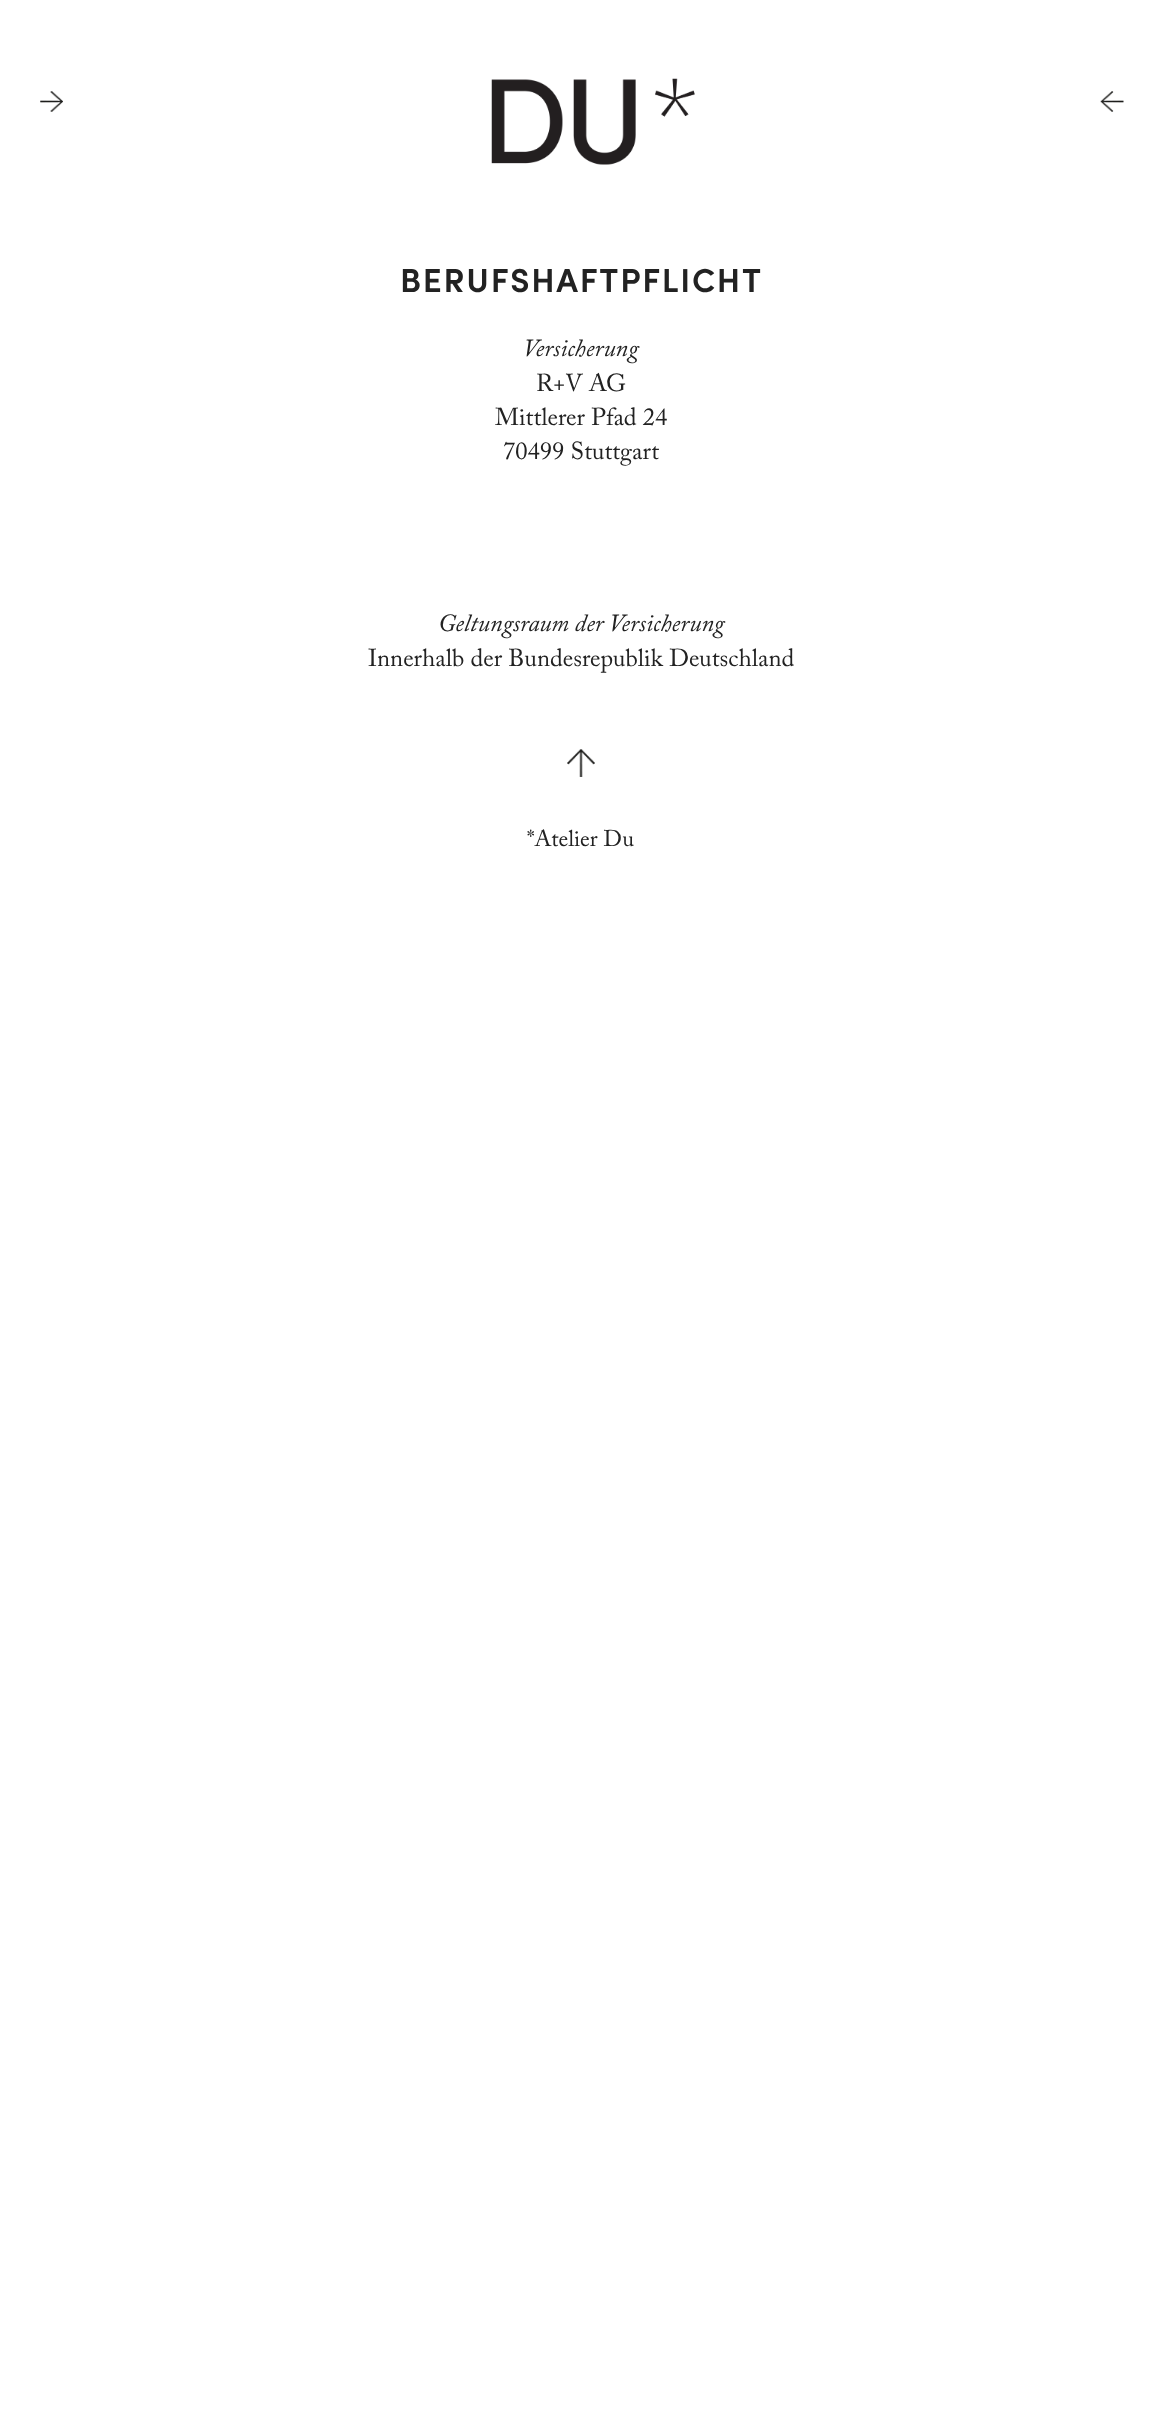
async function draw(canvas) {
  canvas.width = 1161
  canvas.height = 2409
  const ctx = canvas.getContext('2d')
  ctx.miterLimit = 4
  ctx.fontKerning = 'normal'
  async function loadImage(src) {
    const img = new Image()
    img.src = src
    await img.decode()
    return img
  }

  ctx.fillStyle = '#fff'
  ctx.fillRect(0, 0, 1161, 2409)
  ctx.drawImage(await loadImage('image0.png'), 40, 91, 23, 21)
  ctx.drawImage(await loadImage('image1.png'), 491, 78, 204, 87)
  ctx.drawImage(await loadImage('image2.png'), 1100, 91, 24, 21)
  ctx.letterSpacing = '1.75px'
  ctx.font = '600 33.25px Sofia'
  ctx.fillStyle = '#222'
  ctx.fillText('BERUFSHAFTPFLICHT', 400, 292)
  ctx.letterSpacing = '0px'
  ctx.font = 'italic 24.5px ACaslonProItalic'
  ctx.fillText('Versicherung', 523, 356)
  ctx.font = '24.5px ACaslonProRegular'
  ctx.fillText('R+V AG', 536, 391)
  ctx.fillText('Mittlerer Pfad 24', 495, 425)
  ctx.fillText('70499 Stuttgart', 503, 459)
  ctx.font = 'italic 24.5px ACaslonProItalic'
  ctx.fillText('Geltungsraum der Versicherung', 438, 631)
  ctx.font = '24.5px ACaslonProRegular'
  ctx.fillText('Innerhalb der Bundesrepublik Deutschland', 368, 666)
  ctx.drawImage(await loadImage('image3.png'), 567, 749, 28, 28)
  ctx.font = '22.75px ACaslonProRegular'
  ctx.fillText('*Atelier Du', 527, 846)
}

draw(document.querySelector('canvas'))
